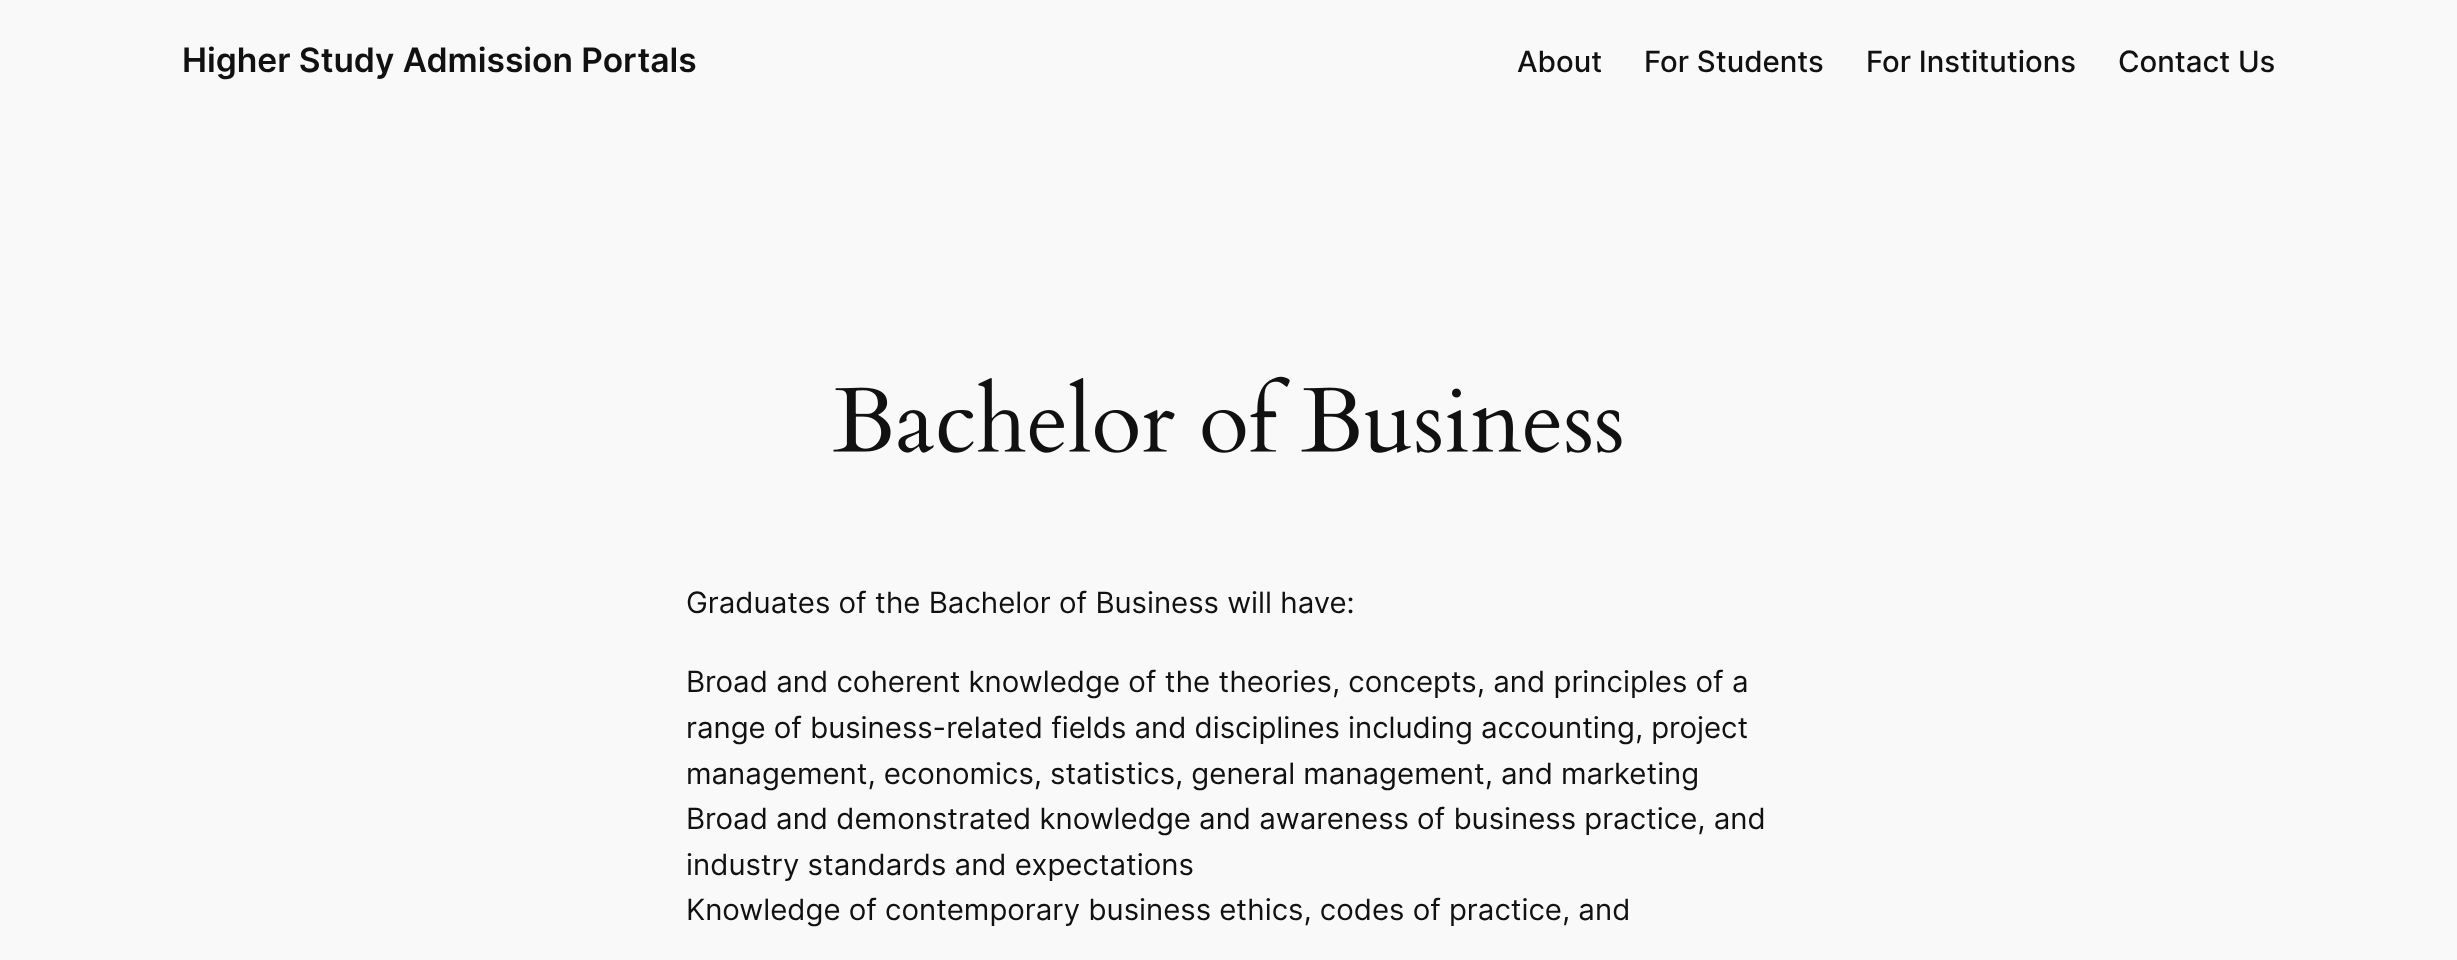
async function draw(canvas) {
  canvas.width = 2457
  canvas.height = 960
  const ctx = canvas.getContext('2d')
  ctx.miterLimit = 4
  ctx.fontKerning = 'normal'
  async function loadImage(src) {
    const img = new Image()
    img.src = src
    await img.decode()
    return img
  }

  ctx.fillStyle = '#f9f9f9'
  ctx.fillRect(0, 0, 2457, 960)
  ctx.font = '600 33.6px Inter'
  ctx.fillStyle = '#111'
  ctx.fillText('Higher Study Admission Portals', 182, 72)
  ctx.font = '500 29.4px Inter'
  ctx.fillText('About', 1517, 72)
  ctx.fillText('For Students', 1644, 72)
  ctx.fillText('For Institutions', 1866, 72)
  ctx.fillText('Contact Us', 2118, 72)
  ctx.drawImage(await loadImage('image0.png'), 833, 376, 789, 77)
  ctx.font = '29.4px Inter'
  ctx.fillText('Graduates of the Bachelor of Business will have:', 686, 613)
  ctx.fillText('Broad and coherent knowledge of the theories, concepts, and principles of a', 686, 692)
  ctx.wordSpacing = '-0.25px'
  ctx.fillText('range of business-related fields and disciplines including accounting, project', 686, 738)
  ctx.fillText('management, economics, statistics, general management, and marketing', 686, 784)
  ctx.wordSpacing = '-0.1px'
  ctx.fillText('Broad and demonstrated knowledge and awareness of business practice, and', 686, 829)
  ctx.wordSpacing = '0px'
  ctx.fillText('industry standards and expectations', 686, 875)
  ctx.wordSpacing = '-0.1px'
  ctx.fillText('Knowledge of contemporary business ethics, codes of practice, and', 686, 920)
}

draw(document.querySelector('canvas'))
